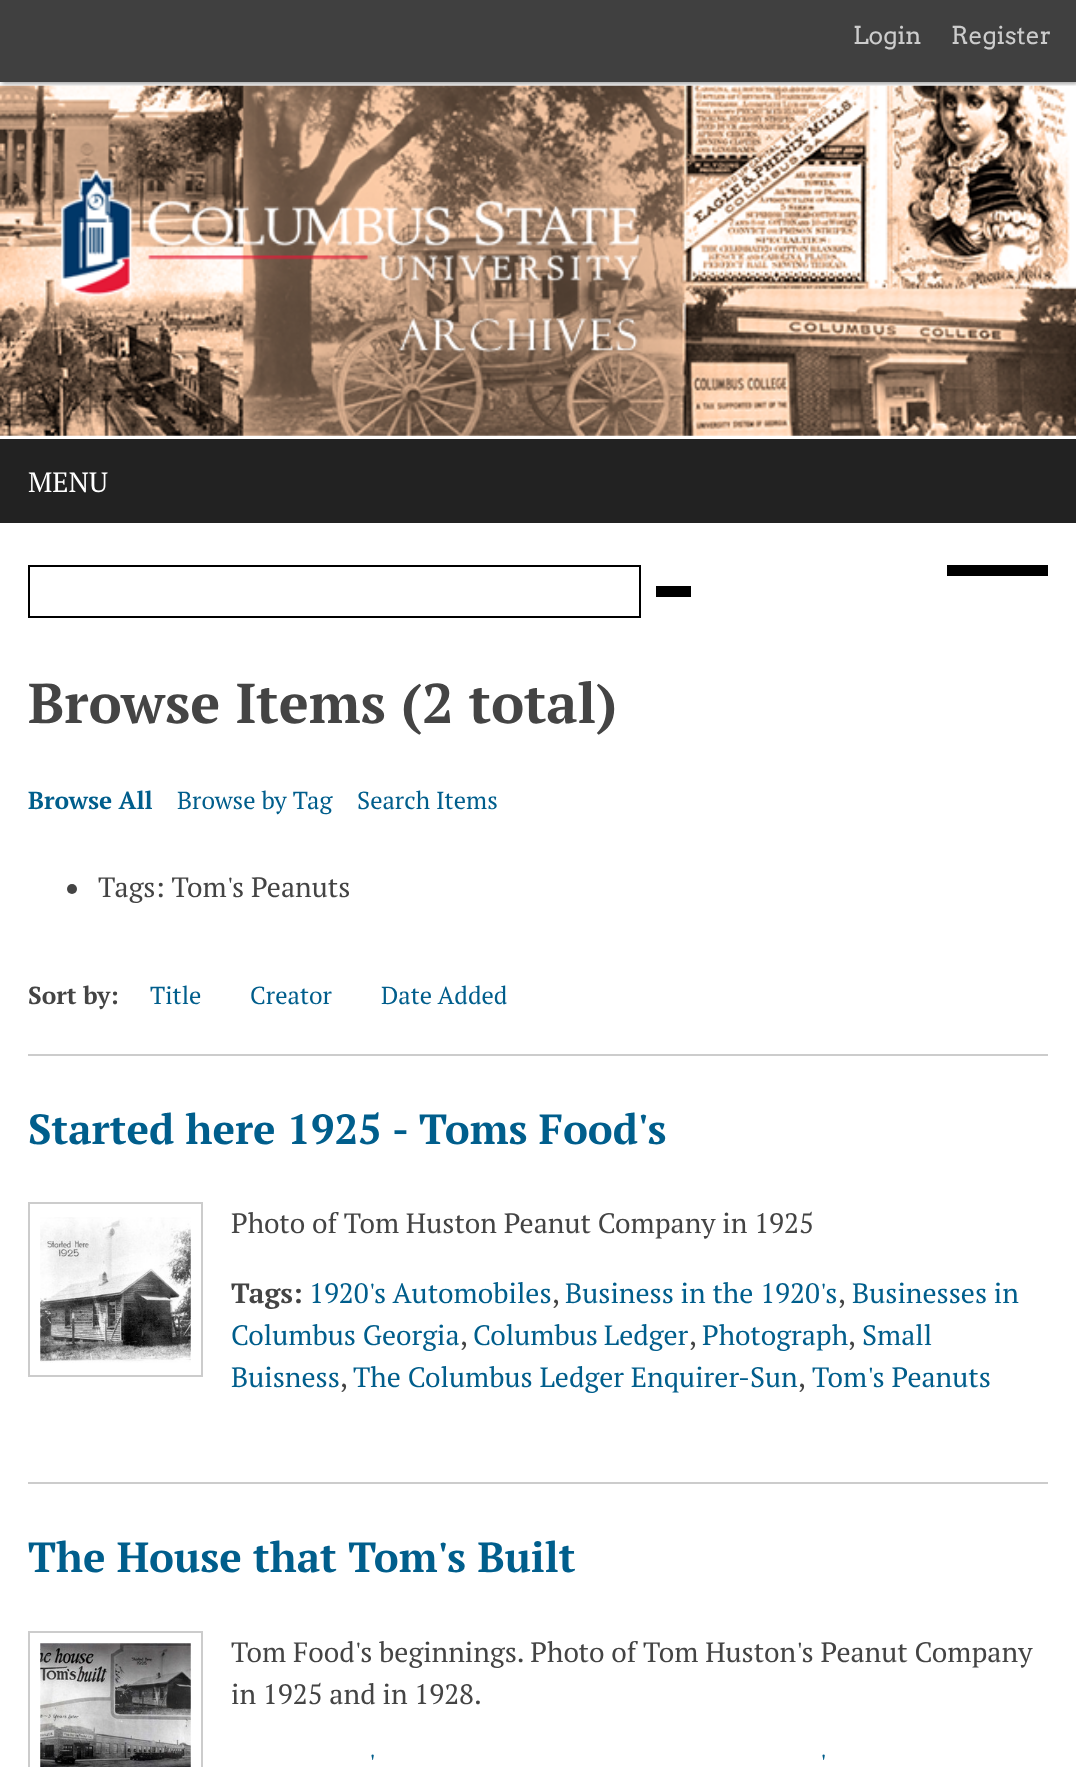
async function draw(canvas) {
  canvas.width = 1076
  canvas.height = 1767
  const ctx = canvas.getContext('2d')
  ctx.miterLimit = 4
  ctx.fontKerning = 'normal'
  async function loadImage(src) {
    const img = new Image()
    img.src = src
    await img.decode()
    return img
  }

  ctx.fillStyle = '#fff'
  ctx.fillRect(0, 0, 1076, 1767)
  ctx.fillStyle = '#00000059'
  ctx.filter = 'blur(2px)'
  ctx.beginPath()
  ctx.rect(2, 2, 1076, 82)
  ctx.fill()
  ctx.filter = 'none'
  ctx.fillStyle = '#404040'
  ctx.fillRect(0, 0, 1076, 82)
  ctx.font = '24.5px Arvo'
  ctx.fillStyle = '#ccc'
  ctx.fillText('Login', 853, 44)
  ctx.fillText('Register', 951, 44)
  ctx.drawImage(await loadImage('image0.png'), 0, 85, 1076, 351)
  ctx.drawImage(await loadImage('image1.png'), 60, 169, 583, 189)
  ctx.fillStyle = '#222'
  ctx.fillRect(0, 439, 1076, 84)
  ctx.font = '28px PT Serif'
  ctx.fillStyle = '#fff'
  ctx.fillText('MENU', 28, 492)
  ctx.strokeStyle = '#000'
  ctx.lineWidth = 2
  ctx.strokeRect(29, 566, 611, 51)
  ctx.fillStyle = '#000'
  ctx.fillRect(947, 565, 101, 11)
  ctx.fillRect(656, 586, 35, 11)
  ctx.font = 'bold 56px PT Serif'
  ctx.fillStyle = '#444'
  ctx.fillText('Browse Items (2 total)', 28, 723)
  ctx.font = 'bold 24.5px PT Serif'
  ctx.fillStyle = '#005e8c'
  ctx.fillText('Browse All', 28, 809)
  ctx.font = '24.5px PT Serif'
  ctx.fillText('Browse by Tag', 177, 809)
  ctx.fillText('Search Items', 357, 809)
  ctx.fillStyle = '#444'
  ctx.beginPath()
  ctx.arc(72, 889, 5, 0, 2 * Math.PI)
  ctx.fill()
  ctx.font = '28px PT Serif'
  ctx.fillText('Tags: Tom\'s Peanuts', 98, 897)
  ctx.font = 'bold 24.5px PT Serif'
  ctx.fillText('Sort by:', 28, 1004)
  ctx.font = '24.5px PT Serif'
  ctx.fillStyle = '#005e8c'
  ctx.fillText('Title', 150, 1004)
  ctx.fillText('Creator', 250, 1004)
  ctx.fillText('Date Added', 381, 1004)
  ctx.fillStyle = '#ccc'
  ctx.fillRect(28, 1054, 1020, 2)
  ctx.fillRect(28, 1482, 1020, 2)
  ctx.font = 'bold 42px PT Serif'
  ctx.fillStyle = '#005e8c'
  ctx.fillText('Started here 1925 - Toms Food\'s', 28, 1144)
  ctx.strokeStyle = '#ccc'
  ctx.strokeRect(29, 1203, 173, 173)
  ctx.drawImage(await loadImage('image2.png'), 40, 1217, 151, 146)
  ctx.font = '28px PT Serif'
  ctx.fillStyle = '#444'
  ctx.fillText('Photo of Tom Huston Peanut Company in 1925', 231, 1233)
  ctx.font = 'bold 28px PT Serif'
  ctx.fillText('Tags:', 231, 1303)
  ctx.font = '28px PT Serif'
  ctx.fillStyle = '#005e8c'
  ctx.fillText('1920\'s Automobiles', 309, 1303)
  ctx.fillStyle = '#444'
  ctx.fillText(',', 552, 1303)
  ctx.fillStyle = '#005e8c'
  ctx.fillText('Business in the 1920\'s', 565, 1303)
  ctx.fillStyle = '#444'
  ctx.fillText(',', 838, 1303)
  ctx.fillStyle = '#005e8c'
  ctx.fillText('Businesses in', 852, 1303)
  ctx.fillText('Columbus Georgia', 231, 1345)
  ctx.fillStyle = '#444'
  ctx.fillText(',', 460, 1345)
  ctx.wordSpacing = '-1px'
  ctx.fillStyle = '#005e8c'
  ctx.fillText('Columbus Ledger', 473, 1345)
  ctx.wordSpacing = '0px'
  ctx.fillStyle = '#444'
  ctx.fillText(',', 689, 1345)
  ctx.fillStyle = '#005e8c'
  ctx.fillText('Photograph', 702, 1345)
  ctx.fillStyle = '#444'
  ctx.fillText(',', 848, 1345)
  ctx.fillStyle = '#005e8c'
  ctx.fillText('Small', 862, 1345)
  ctx.fillText('Buisness', 231, 1387)
  ctx.fillStyle = '#444'
  ctx.fillText(',', 340, 1387)
  ctx.fillStyle = '#005e8c'
  ctx.fillText('The Columbus Ledger Enquirer-Sun', 353, 1387)
  ctx.fillStyle = '#444'
  ctx.fillText(',', 798, 1387)
  ctx.fillStyle = '#005e8c'
  ctx.fillText('Tom\'s Peanuts', 812, 1387)
  ctx.font = 'bold 42px PT Serif'
  ctx.fillText('The House that Tom\'s Built', 28, 1572)
  ctx.strokeRect(29, 1632, 173, 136)
  ctx.drawImage(await loadImage('image3.png'), 40, 1643, 151, 124)
  ctx.font = '28px PT Serif'
  ctx.fillStyle = '#444'
  ctx.fillText('Tom Food\'s beginnings. Photo of Tom Huston\'s Peanut Company', 231, 1662)
  ctx.fillText('in 1925 and in 1928.', 231, 1704)
  ctx.fillStyle = '#005e8c'
  ctx.fillText('\'', 369, 1774)
  ctx.fillText('\'', 820, 1774)
}

draw(document.querySelector('canvas'))
